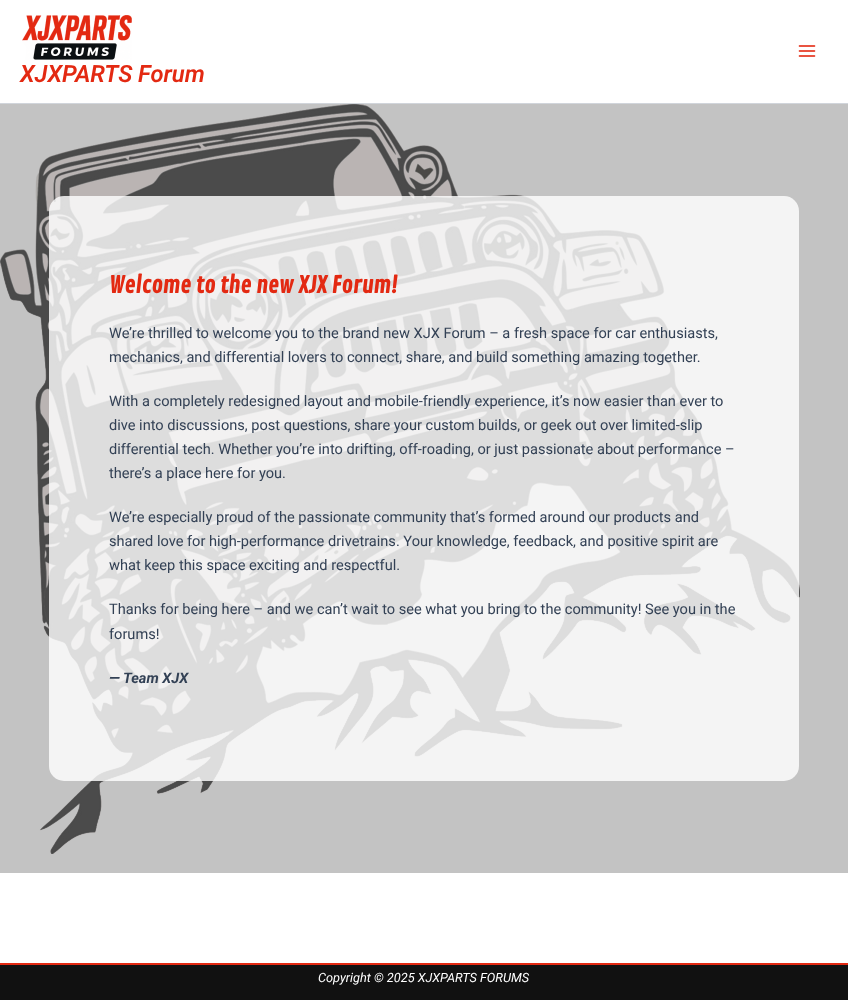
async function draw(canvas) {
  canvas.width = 848
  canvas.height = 1000
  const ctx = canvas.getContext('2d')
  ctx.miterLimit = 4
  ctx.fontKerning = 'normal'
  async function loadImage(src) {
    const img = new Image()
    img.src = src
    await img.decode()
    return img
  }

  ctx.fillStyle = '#fff'
  ctx.fillRect(0, 0, 848, 1000)
  ctx.fillStyle = '#c3c3c3'
  ctx.fillRect(0, 104, 848, 769)
  ctx.fillStyle = '#d1d5db'
  ctx.fillRect(0, 103, 848, 1)
  ctx.drawImage(await loadImage('image0.png'), 798, 45, 18, 12)
  ctx.drawImage(await loadImage('image1.png'), 22, 15, 110, 45)
  ctx.font = 'italic 600 23.75px Roboto'
  ctx.fillStyle = '#e32912'
  ctx.fillText('XJXPARTS Forum', 20, 82)
  ctx.drawImage(await loadImage('image2.png'), 0, 104, 800, 750)
  ctx.fillStyle = '#ffffffcf'
  ctx.beginPath()
  ctx.roundRect(49, 196, 750, 585, 15)
  ctx.fill()
  ctx.font = 'bold 22.75px Contrail One'
  ctx.fillStyle = '#e32912'
  ctx.fillText('Welcome to the new XJX Forum!', 109, 293)
  ctx.font = '14.6px Roboto'
  ctx.fillStyle = '#334155'
  ctx.fillText('We’re thrilled to welcome you to the brand new XJX Forum – a fresh space for car enthusiasts,', 109, 338)
  ctx.fillText('mechanics, and differential lovers to connect, share, and build something amazing together.', 109, 362)
  ctx.fillText('With a completely redesigned layout and mobile-friendly experience, it’s now easier than ever to', 109, 406)
  ctx.fillText('dive into discussions, post questions, share your custom builds, or geek out over limited-slip', 109, 430)
  ctx.fillText('differential tech. Whether you’re into drifting, off-roading, or just passionate about performance –', 109, 454)
  ctx.fillText('there’s a place here for you.', 109, 478)
  ctx.fillText('We’re especially proud of the passionate community that’s formed around our products and', 109, 522)
  ctx.fillText('shared love for high-performance drivetrains. Your knowledge, feedback, and positive spirit are', 109, 546)
  ctx.fillText('what keep this space exciting and respectful.', 109, 570)
  ctx.fillText('Thanks for being here – and we can’t wait to see what you bring to the community! See you in the', 109, 614)
  ctx.fillText('forums!', 109, 639)
  ctx.font = 'italic bold 14.6px Roboto'
  ctx.fillText('— Team XJX', 109, 683)
  ctx.fillStyle = '#111'
  ctx.fillRect(0, 965, 848, 35)
  ctx.fillStyle = '#e32912'
  ctx.fillRect(0, 963, 848, 2)
  ctx.font = 'italic 12.75px Roboto'
  ctx.fillStyle = '#fff'
  ctx.fillText('Copyright © 2025 XJXPARTS FORUMS', 318, 982)
}

draw(document.querySelector('canvas'))
